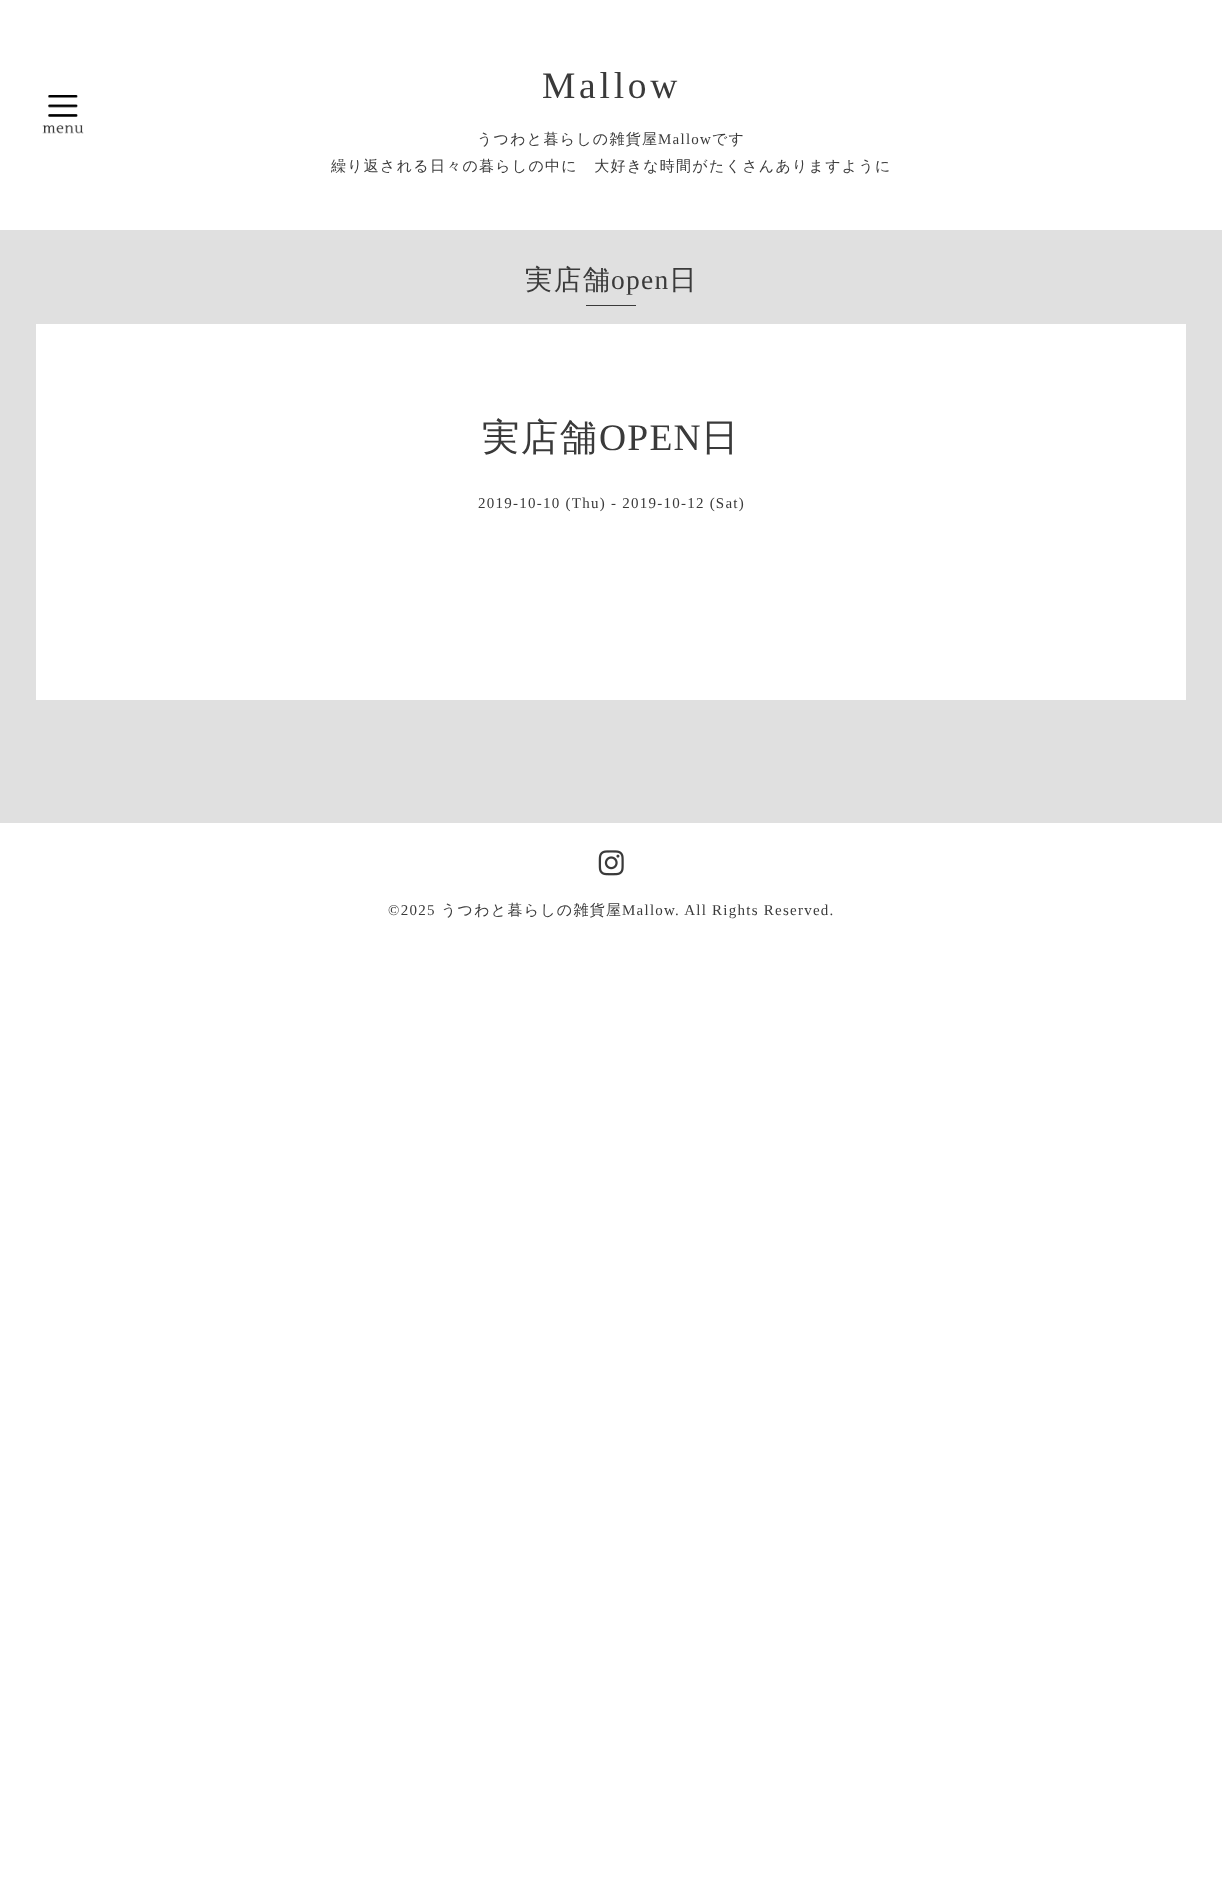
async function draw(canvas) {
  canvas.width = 1222
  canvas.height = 1886
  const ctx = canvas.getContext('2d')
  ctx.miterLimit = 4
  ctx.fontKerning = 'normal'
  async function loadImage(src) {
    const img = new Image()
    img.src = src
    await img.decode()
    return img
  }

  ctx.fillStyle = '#fff'
  ctx.fillRect(0, 0, 1222, 1886)
  ctx.drawImage(await loadImage('image0.png'), 42, 95, 42, 39)
  ctx.letterSpacing = '3.75px'
  ctx.font = '37.5px Liberation Serif'
  ctx.fillStyle = '#3a3a3a'
  ctx.fillText('Mallow', 542, 98)
  ctx.letterSpacing = '1.25px'
  ctx.font = '500 15px WenQuanYi Zen Hei'
  ctx.fillText('うつわと暮らしの雑貨屋', 477, 144)
  ctx.font = '15px Liberation Serif'
  ctx.fillText('Mallow', 658, 144)
  ctx.font = '500 15px WenQuanYi Zen Hei'
  ctx.fillText('です', 712, 144)
  ctx.fillText('繰り返される日々の暮らしの中に　大好きな時間がたくさんありますように', 331, 171)
  ctx.fillStyle = '#e0e0e0'
  ctx.fillRect(0, 230, 1222, 593)
  ctx.font = '500 27.5px WenQuanYi Zen Hei'
  ctx.fillStyle = '#3a3a3a'
  ctx.fillText('実店舗', 525, 289)
  ctx.font = '27.5px Liberation Serif'
  ctx.fillText('open', 611, 289)
  ctx.font = '500 27.5px WenQuanYi Zen Hei'
  ctx.fillText('日', 669, 289)
  ctx.fillRect(586, 305, 50, 1)
  ctx.fillStyle = '#fff'
  ctx.fillRect(36, 324, 1150, 376)
  ctx.font = '500 37.5px WenQuanYi Zen Hei'
  ctx.fillStyle = '#3a3a3a'
  ctx.fillText('実店舗', 482, 450)
  ctx.font = '37.5px Liberation Serif'
  ctx.fillText('OPEN', 599, 450)
  ctx.font = '500 37.5px WenQuanYi Zen Hei'
  ctx.fillText('日', 701, 450)
  ctx.font = '15px Liberation Serif'
  ctx.fillText('2019-10-10 (Thu) - 2019-10-12 (Sat)', 478, 508)
  ctx.drawImage(await loadImage('image1.png'), 598, 850, 26, 26)
  ctx.fillText('©2025', 388, 915)
  ctx.font = '500 15px WenQuanYi Zen Hei'
  ctx.fillText('うつわと暮らしの雑貨屋', 441, 915)
  ctx.font = '15px Liberation Serif'
  ctx.fillText('Mallow', 622, 915)
  ctx.fillText('. All Rights Reserved.', 675, 915)
}

draw(document.querySelector('canvas'))
